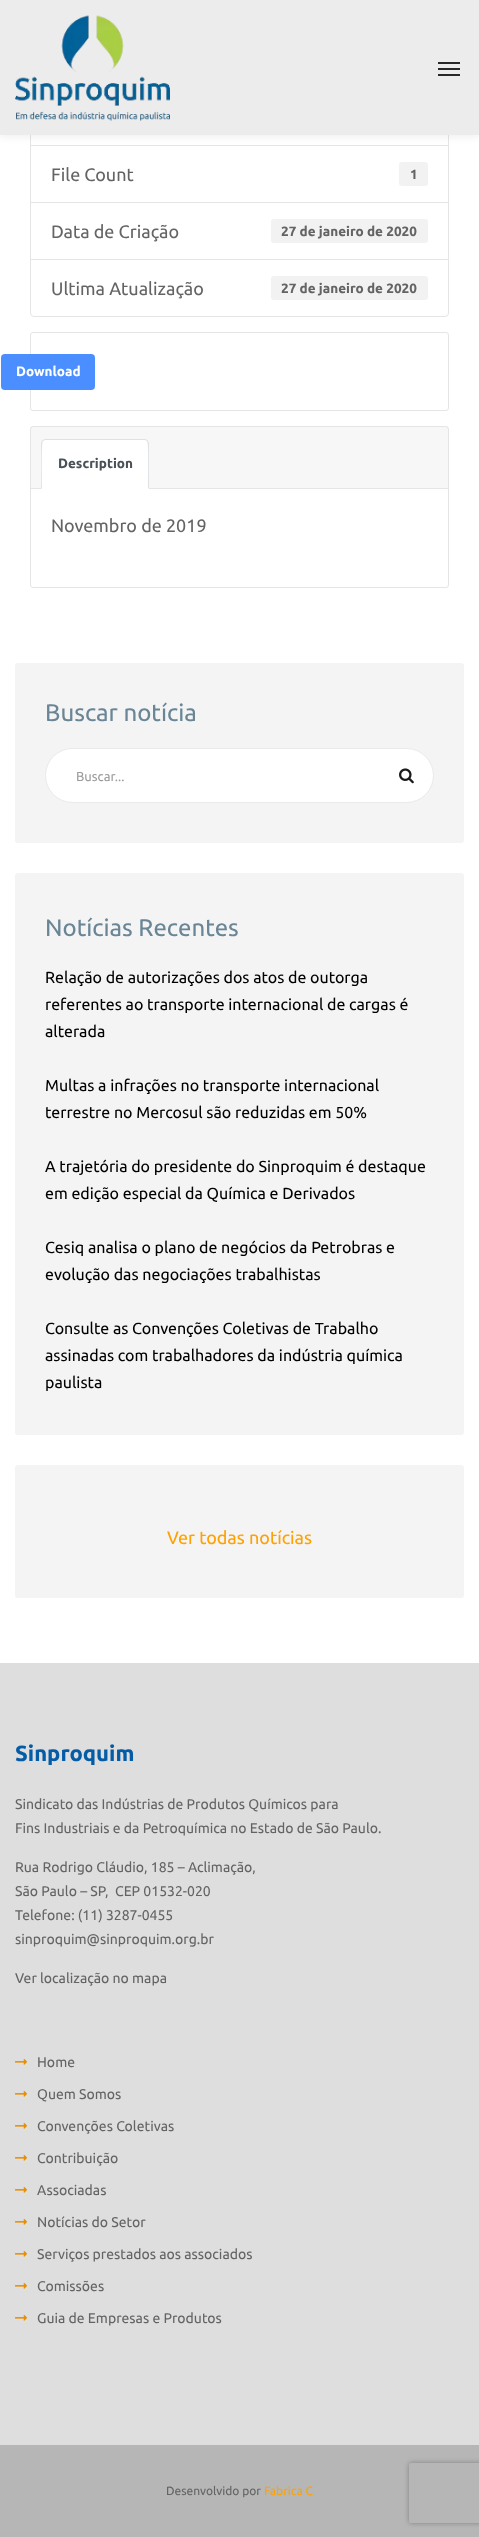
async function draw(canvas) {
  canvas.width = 479
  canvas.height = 2537
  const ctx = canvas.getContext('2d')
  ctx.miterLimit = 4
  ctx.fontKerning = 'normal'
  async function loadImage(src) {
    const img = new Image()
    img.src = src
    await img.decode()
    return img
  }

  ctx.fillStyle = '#fff'
  ctx.fillRect(0, 0, 479, 2537)
  ctx.strokeStyle = '#e5e5e5'
  ctx.strokeRect(30.5, 88.5, 418, 57)
  ctx.strokeRect(30.5, 145.5, 418, 57)
  ctx.fillStyle = '#0000000d'
  ctx.filter = 'blur(3px)'
  ctx.beginPath()
  ctx.rect(0, 3, 479, 135)
  ctx.fill()
  ctx.filter = 'none'
  ctx.fillStyle = '#ececed'
  ctx.fillRect(0, 0, 479, 135)
  ctx.drawImage(await loadImage('image0.png'), 15, 15, 155, 106)
  ctx.fillStyle = '#282828'
  ctx.fillRect(438, 62, 22, 2)
  ctx.fillRect(438, 68, 22, 2)
  ctx.fillRect(438, 74, 22, 2)
  ctx.font = '18px Ubuntu'
  ctx.fillStyle = '#646464'
  ctx.fillText('File Count', 51, 181)
  ctx.fillStyle = '#f2f2f2'
  ctx.beginPath()
  ctx.roundRect(399, 162, 29, 24, 3)
  ctx.fill()
  ctx.font = 'bold 13.5px Ubuntu'
  ctx.fillStyle = '#646464'
  ctx.fillText('1', 410, 179)
  ctx.strokeRect(30.5, 202.5, 418, 57)
  ctx.font = '18px Ubuntu'
  ctx.fillText('Data de Criação', 51, 238)
  ctx.fillStyle = '#f2f2f2'
  ctx.beginPath()
  ctx.roundRect(271, 219, 157, 24, 3)
  ctx.fill()
  ctx.font = 'bold 13.5px Ubuntu'
  ctx.fillStyle = '#646464'
  ctx.fillText('27 de janeiro de 2020', 281, 236)
  ctx.fillStyle = '#fff'
  ctx.beginPath()
  ctx.roundRect(30.5, 259.5, 418, 57, [0, 0, 3.5, 3.5])
  ctx.fill()
  ctx.stroke()
  ctx.font = '18px Ubuntu'
  ctx.fillStyle = '#646464'
  ctx.fillText('Ultima Atualização', 51, 295)
  ctx.fillStyle = '#f2f2f2'
  ctx.beginPath()
  ctx.roundRect(271, 276, 157, 24, 3)
  ctx.fill()
  ctx.font = 'bold 13.5px Ubuntu'
  ctx.fillStyle = '#646464'
  ctx.fillText('27 de janeiro de 2020', 281, 293)
  ctx.beginPath()
  ctx.roundRect(30.5, 332.5, 418, 78, 2.5)
  ctx.stroke()
  ctx.fillStyle = '#4a8eff'
  ctx.beginPath()
  ctx.roundRect(1, 354, 94, 36, 4)
  ctx.fill()
  ctx.fillStyle = '#fff'
  ctx.fillText('Download', 16, 376)
  ctx.beginPath()
  ctx.roundRect(30.5, 426.5, 418, 161, 2.5)
  ctx.stroke()
  ctx.fillStyle = '#00000008'
  ctx.fillRect(31, 427, 417, 61)
  ctx.fillStyle = '#e5e5e5'
  ctx.fillRect(31, 488, 417, 1)
  ctx.fillStyle = '#fff'
  ctx.beginPath()
  ctx.roundRect(41, 439, 108, 50, [4, 4, 0, 0])
  ctx.fill()
  ctx.fillStyle = '#dee2e6'
  ctx.beginPath()
  ctx.moveTo(45, 439)
  ctx.lineTo(42, 440)
  ctx.lineTo(43, 441)
  ctx.lineTo(45, 440)
  ctx.lineTo(145, 440)
  ctx.lineTo(147, 441)
  ctx.lineTo(148, 440)
  ctx.lineTo(145, 439)
  ctx.closePath()
  ctx.fill()
  ctx.beginPath()
  ctx.moveTo(149, 489)
  ctx.lineTo(149, 443)
  ctx.bezierCurveTo(149, 442, 148, 441, 148, 440)
  ctx.lineTo(147, 441)
  ctx.bezierCurveTo(149, 443, 148, 482, 148, 488)
  ctx.closePath()
  ctx.fill()
  ctx.fillStyle = '#fff'
  ctx.beginPath()
  ctx.moveTo(149, 489)
  ctx.lineTo(148, 488)
  ctx.lineTo(42, 488)
  ctx.lineTo(41, 489)
  ctx.closePath()
  ctx.fill()
  ctx.fillStyle = '#dee2e6'
  ctx.beginPath()
  ctx.moveTo(41, 489)
  ctx.lineTo(42, 488)
  ctx.bezierCurveTo(42, 482, 41, 443, 43, 441)
  ctx.lineTo(42, 440)
  ctx.lineTo(41, 443)
  ctx.closePath()
  ctx.fill()
  ctx.fillStyle = '#495057'
  ctx.fillText('Description', 58, 468)
  ctx.font = '18px Ubuntu'
  ctx.fillStyle = '#646464'
  ctx.fillText('Novembro de 2019', 51, 532)
  ctx.fillStyle = '#f4f4f4'
  ctx.beginPath()
  ctx.roundRect(15, 663, 449, 180, 3)
  ctx.fill()
  ctx.font = '24px Ubuntu'
  ctx.fillStyle = '#6a8596'
  ctx.fillText('Buscar notícia', 45, 721)
  ctx.fillStyle = '#fff'
  ctx.beginPath()
  ctx.roundRect(45.5, 748.5, 388, 54, 27)
  ctx.fill()
  ctx.strokeStyle = '#eaeaea'
  ctx.stroke()
  ctx.font = '13px Ubuntu'
  ctx.fillStyle = '#9b9b9b'
  ctx.fillText('Buscar...', 76, 781)
  ctx.drawImage(await loadImage('image1.png'), 399, 768, 15, 16)
  ctx.fillStyle = '#f4f4f4'
  ctx.beginPath()
  ctx.roundRect(15, 873, 449, 562, 3)
  ctx.fill()
  ctx.font = '24px Ubuntu'
  ctx.fillStyle = '#6a8596'
  ctx.fillText('Notícias Recentes', 45, 936)
  ctx.font = '16px Ubuntu'
  ctx.fillStyle = '#000'
  ctx.fillText('Relação de autorizações dos atos de outorga', 45, 983)
  ctx.fillText('referentes ao transporte internacional de cargas é', 45, 1010)
  ctx.fillText('alterada', 45, 1037)
  ctx.fillText('Multas a infrações no transporte internacional', 45, 1091)
  ctx.fillText('terrestre no Mercosul são reduzidas em 50%', 45, 1118)
  ctx.fillText('A trajetória do presidente do Sinproquim é destaque', 45, 1172)
  ctx.fillText('em edição especial da Química e Derivados', 45, 1199)
  ctx.fillText('Cesiq analisa o plano de negócios da Petrobras e', 45, 1253)
  ctx.fillText('evolução das negociações trabalhistas', 45, 1280)
  ctx.fillText('Consulte as Convenções Coletivas de Trabalho', 45, 1334)
  ctx.fillText('assinadas com trabalhadores da indústria química', 45, 1361)
  ctx.fillText('paulista', 45, 1388)
  ctx.fillStyle = '#f4f4f4'
  ctx.beginPath()
  ctx.roundRect(15, 1465, 449, 133, 3)
  ctx.fill()
  ctx.font = '18px Ubuntu'
  ctx.fillStyle = '#ffa100'
  ctx.fillText('Ver todas notícias', 167, 1544)
  ctx.fillStyle = '#dedede'
  ctx.fillRect(0, 1663, 479, 782)
  ctx.font = 'bold 22px Ubuntu'
  ctx.fillStyle = '#045ca7'
  ctx.fillText('Sinproquim', 15, 1761)
  ctx.font = '14px Ubuntu'
  ctx.fillStyle = '#646464'
  ctx.fillText('Sindicato das Indústrias de Produtos Químicos para', 15, 1809)
  ctx.fillText('Fins Industriais e da Petroquímica no Estado de São Paulo.', 15, 1833)
  ctx.fillText('Rua Rodrigo Cláudio, 185 – Aclimação,', 15, 1872)
  ctx.fillText('São Paulo – SP,  CEP 01532-020', 15, 1896)
  ctx.fillText('Telefone: (11) 3287-0455', 15, 1920)
  ctx.fillText('sinproquim@sinproquim.org.br', 15, 1944)
  ctx.fillText('Ver localização no mapa', 15, 1983)
  ctx.drawImage(await loadImage('image2.png'), 15, 2058, 13, 7)
  ctx.fillText('Home', 37, 2067)
  ctx.drawImage(await loadImage('image2.png'), 15, 2090, 13, 7)
  ctx.fillText('Quem Somos', 37, 2099)
  ctx.drawImage(await loadImage('image2.png'), 15, 2122, 13, 7)
  ctx.fillText('Convenções Coletivas', 37, 2131)
  ctx.drawImage(await loadImage('image2.png'), 15, 2154, 13, 7)
  ctx.fillText('Contribuição', 37, 2163)
  ctx.drawImage(await loadImage('image2.png'), 15, 2186, 13, 7)
  ctx.fillText('Associadas', 37, 2195)
  ctx.drawImage(await loadImage('image2.png'), 15, 2218, 13, 7)
  ctx.fillText('Notícias do Setor', 37, 2227)
  ctx.drawImage(await loadImage('image2.png'), 15, 2250, 13, 7)
  ctx.fillText('Serviços prestados aos associados', 37, 2259)
  ctx.drawImage(await loadImage('image2.png'), 15, 2282, 13, 7)
  ctx.fillText('Comissões', 37, 2291)
  ctx.drawImage(await loadImage('image2.png'), 15, 2314, 13, 7)
  ctx.fillText('Guia de Empresas e Produtos', 37, 2323)
  ctx.fillStyle = '#b6b6b6'
  ctx.fillRect(0, 2445, 479, 92)
  ctx.font = '12px Ubuntu'
  ctx.fillStyle = '#646464'
  ctx.fillText('Desenvolvido por', 166, 2495)
  ctx.fillStyle = '#ffa100'
  ctx.fillText('Fabrica C', 264, 2495)
  ctx.save()
  ctx.beginPath()
  ctx.moveTo(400, 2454)
  ctx.lineTo(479, 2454)
  ctx.lineTo(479, 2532)
  ctx.lineTo(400, 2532)
  ctx.closePath()
  ctx.moveTo(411, 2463)
  ctx.lineTo(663, 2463)
  ctx.bezierCurveTo(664, 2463, 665, 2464, 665, 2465)
  ctx.lineTo(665, 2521)
  ctx.bezierCurveTo(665, 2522, 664, 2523, 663, 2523)
  ctx.lineTo(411, 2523)
  ctx.bezierCurveTo(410, 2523, 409, 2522, 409, 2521)
  ctx.lineTo(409, 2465)
  ctx.bezierCurveTo(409, 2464, 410, 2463, 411, 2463)
  ctx.closePath()
  ctx.clip('evenodd')
  ctx.fillStyle = '#808080'
  ctx.filter = 'blur(2.5px)'
  ctx.beginPath()
  ctx.roundRect(409, 2463, 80, 60, 2)
  ctx.fill()
  ctx.filter = 'none'
  ctx.restore()
}

draw(document.querySelector('canvas'))
